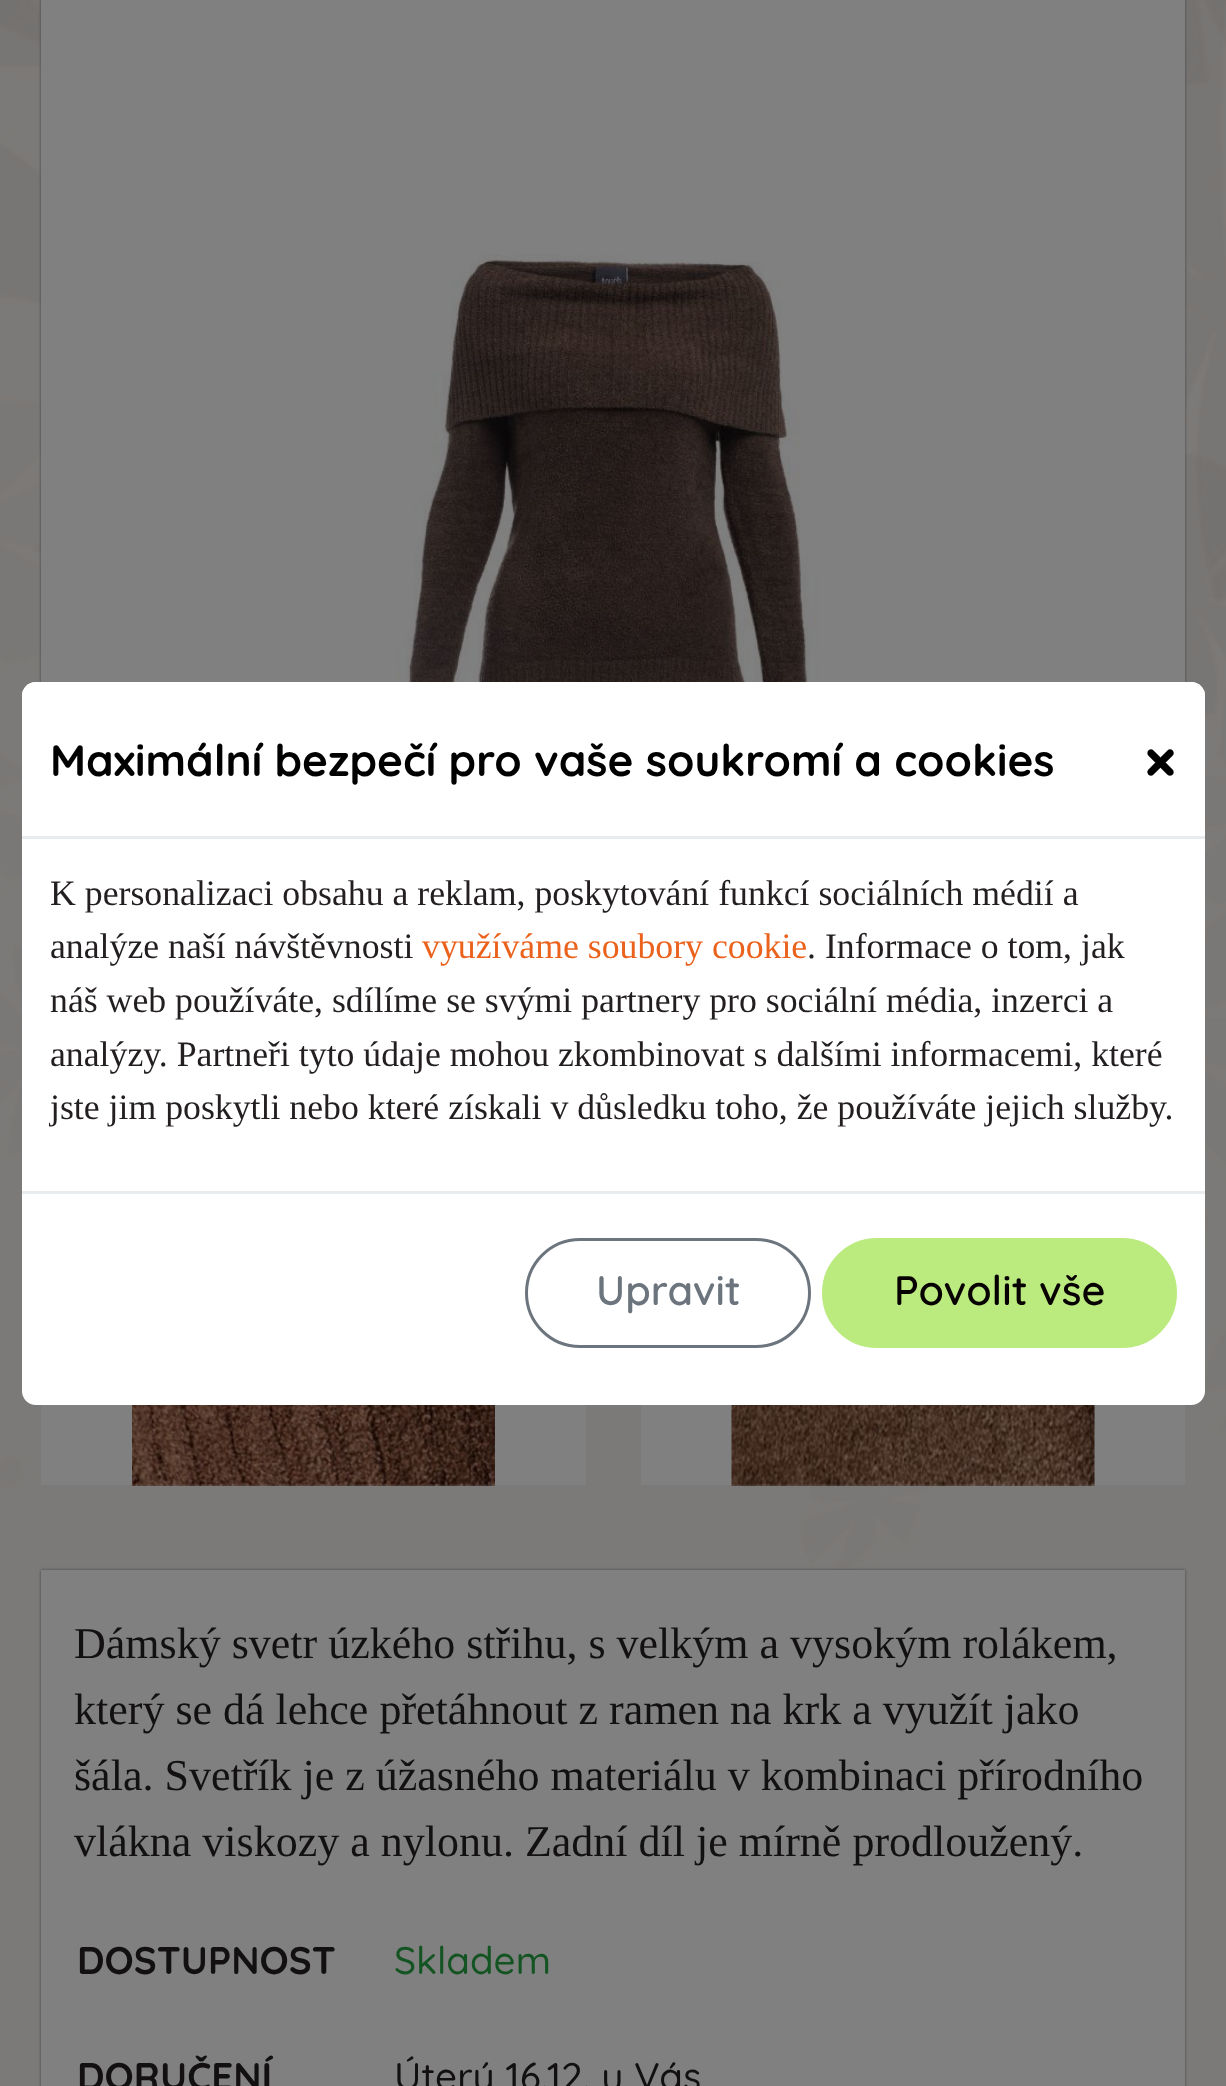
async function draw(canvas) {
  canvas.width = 1226
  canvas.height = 2086
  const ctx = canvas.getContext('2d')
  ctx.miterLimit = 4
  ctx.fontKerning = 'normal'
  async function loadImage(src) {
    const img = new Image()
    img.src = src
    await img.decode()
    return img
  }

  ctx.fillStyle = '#7c7a78'
  ctx.fillRect(0, 0, 1226, 2086)
  ctx.drawImage(await loadImage('image0.png'), 0, 0, 1226, 1570)
  ctx.fillStyle = '#444'
  ctx.filter = 'blur(1.5px)'
  ctx.beginPath()
  ctx.rect(41, -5, 1144, 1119)
  ctx.fill()
  ctx.filter = 'none'
  ctx.fillStyle = '#fff'
  ctx.beginPath()
  ctx.roundRect(22, 682, 1183, 723, 14)
  ctx.fill()
  ctx.beginPath()
  ctx.roundRect(22, 682, 1183, 157, [14, 14, 0, 0])
  ctx.fill()
  ctx.fillStyle = '#e9ecef'
  ctx.fillRect(22, 836, 1183, 3)
  ctx.font = 'bold 44px Quicksand'
  ctx.fillStyle = '#000'
  ctx.fillText('Maximální bezpečí pro vaše soukromí a cookies', 50, 776)
  ctx.font = 'bold 66px Quicksand'
  ctx.fillText('×', 1144, 784)
  ctx.font = '35.75px Liberation Serif'
  ctx.fillStyle = '#231f20'
  ctx.fillText('K personalizaci obsahu a reklam, poskytování funkcí sociálních médií a', 50, 905)
  ctx.fillText('analýze naší návštěvnosti', 50, 958)
  ctx.fillStyle = '#eb621d'
  ctx.fillText('využíváme soubory cookie', 422, 958)
  ctx.fillStyle = '#231f20'
  ctx.fillText('. Informace o tom, jak', 807, 958)
  ctx.fillText('náš web používáte, sdílíme se svými partnery pro sociální média, inzerci a', 50, 1012)
  ctx.fillText('analýzy. Partneři tyto údaje mohou zkombinovat s dalšími informacemi, které', 50, 1066)
  ctx.fillText('jste jim poskytli nebo které získali v důsledku toho, že používáte jejich služby.', 50, 1119)
  ctx.fillStyle = '#e9ecef'
  ctx.fillRect(22, 1191, 1183, 3)
  ctx.beginPath()
  ctx.roundRect(526.5, 1239.5, 283, 107, 53.5)
  ctx.strokeStyle = '#6c757d'
  ctx.lineWidth = 3
  ctx.stroke()
  ctx.font = '600 41.25px Quicksand'
  ctx.fillStyle = '#6c757d'
  ctx.fillText('Upravit', 596, 1305)
  ctx.fillStyle = '#bbea7e'
  ctx.beginPath()
  ctx.roundRect(823.5, 1239.5, 352, 107, 53.5)
  ctx.fill()
  ctx.strokeStyle = '#bbea7e'
  ctx.stroke()
  ctx.fillStyle = '#070101'
  ctx.fillText('Povolit vše', 894, 1305)
  ctx.fillStyle = '#808080'
  ctx.fillRect(41, 0, 1144, 682)
  ctx.drawImage(await loadImage('image1.png'), 396, 254, 422, 428)
  ctx.fillRect(41, 1405, 545, 80)
  ctx.drawImage(await loadImage('image2.png'), 132, 1405, 363, 81)
  ctx.fillRect(641, 1405, 544, 80)
  ctx.drawImage(await loadImage('image3.png'), 731, 1405, 364, 81)
  ctx.fillStyle = '#444'
  ctx.filter = 'blur(1.5px)'
  ctx.beginPath()
  ctx.rect(41, 1570, 1144, 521)
  ctx.fill()
  ctx.filter = 'none'
  ctx.fillStyle = '#808080'
  ctx.fillRect(41, 1570, 1144, 516)
  ctx.font = '44px Liberation Serif'
  ctx.fillStyle = '#121010'
  ctx.fillText('Dámský svetr úzkého střihu, s velkým a vysokým rolákem,', 74, 1658)
  ctx.fillText('který se dá lehce přetáhnout z ramen na krk a využít jako', 74, 1724)
  ctx.fillText('šála. Svetřík je z úžasného materiálu v kombinaci přírodního', 74, 1790)
  ctx.fillText('vlákna viskozy a nylonu. Zadní díl je mírně prodloužený.', 74, 1856)
  ctx.font = 'bold 38.5px Quicksand'
  ctx.fillText('DOSTUPNOST', 77, 1974)
  ctx.font = '500 38.5px Quicksand'
  ctx.fillStyle = '#145423'
  ctx.fillText('Skladem', 394, 1974)
  ctx.font = 'bold 38.5px Quicksand'
  ctx.fillStyle = '#121010'
  ctx.fillText('DORUČENÍ', 77, 2090)
  ctx.font = '500 38.5px Quicksand'
  ctx.fillText('Úterý 16.12. u Vás', 394, 2090)
}

draw(document.querySelector('canvas'))
